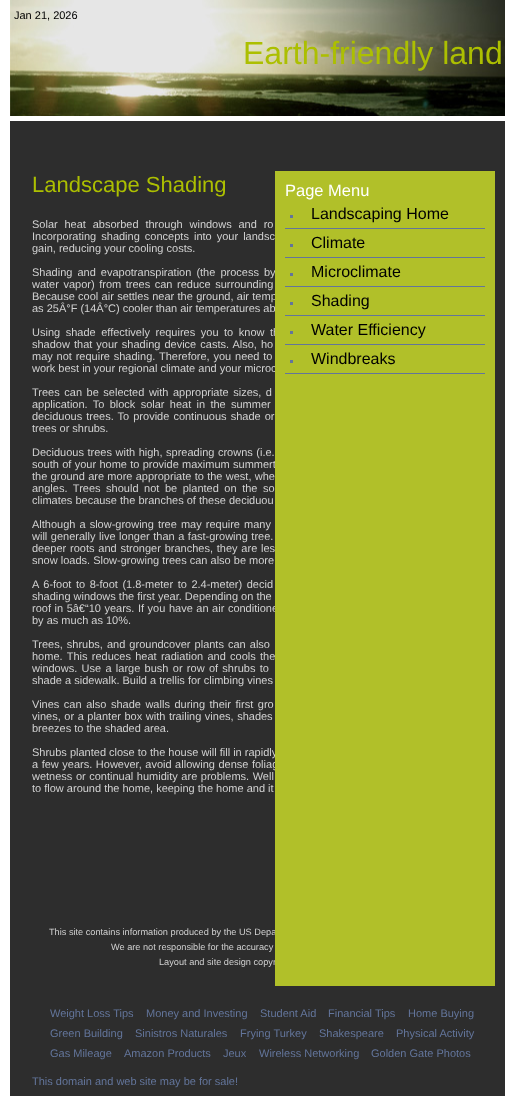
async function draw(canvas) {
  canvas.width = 505
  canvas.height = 1096
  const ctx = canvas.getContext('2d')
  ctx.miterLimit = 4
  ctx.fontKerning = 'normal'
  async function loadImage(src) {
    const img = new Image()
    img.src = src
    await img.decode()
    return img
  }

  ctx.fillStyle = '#fff'
  ctx.fillRect(0, 0, 505, 1096)
  ctx.fillStyle = '#2d2d2d'
  ctx.fillRect(10, 121, 495, 975)
  ctx.drawImage(await loadImage('image0.png'), 10, 0, 495, 116)
  ctx.font = '11px Liberation Sans'
  ctx.fillStyle = '#000'
  ctx.fillText('Jan 21, 2026', 14, 19)
  ctx.font = '32px Liberation Sans'
  ctx.fillStyle = '#acbf01'
  ctx.fillText('Earth-friendly land', 243, 64)
  ctx.font = '22px Liberation Sans'
  ctx.fillText('Landscape Shading', 32, 192)
  ctx.wordSpacing = '3.75px'
  ctx.font = '11px Liberation Sans'
  ctx.fillStyle = '#d1d1d1'
  ctx.fillText('Solar heat absorbed through windows and ro', 32, 228)
  ctx.wordSpacing = '2px'
  ctx.fillText('Incorporating shading concepts into your landsc', 32, 240)
  ctx.wordSpacing = '0px'
  ctx.fillText('gain, reducing your cooling costs.', 32, 252)
  ctx.wordSpacing = '2px'
  ctx.fillText('Shading and evapotranspiration (the process by', 32, 276)
  ctx.wordSpacing = '1.5px'
  ctx.fillText('water vapor) from trees can reduce surrounding', 32, 288)
  ctx.wordSpacing = '0.25px'
  ctx.fillText('Because cool air settles near the ground, air temp', 32, 300)
  ctx.wordSpacing = '0px'
  ctx.fillText('as 25Â°F (14Â°C) cooler than air temperatures ab', 32, 312)
  ctx.wordSpacing = '2.5px'
  ctx.fillText('Using shade effectively requires you to know th', 32, 336)
  ctx.wordSpacing = '1px'
  ctx.fillText('shadow that your shading device casts. Also, ho', 32, 348)
  ctx.wordSpacing = '0.75px'
  ctx.fillText('may not require shading. Therefore, you need to', 32, 360)
  ctx.wordSpacing = '0px'
  ctx.fillText('work best in your regional climate and your microc', 32, 372)
  ctx.wordSpacing = '1.5px'
  ctx.fillText('Trees can be selected with appropriate sizes, d', 32, 396)
  ctx.wordSpacing = '2.25px'
  ctx.fillText('application. To block solar heat in the summer', 32, 408)
  ctx.wordSpacing = '1px'
  ctx.fillText('deciduous trees. To provide continuous shade or', 32, 420)
  ctx.wordSpacing = '0px'
  ctx.fillText('trees or shrubs.', 32, 432)
  ctx.wordSpacing = '0.5px'
  ctx.fillText('Deciduous trees with high, spreading crowns (i.e.', 32, 456)
  ctx.wordSpacing = '0.25px'
  ctx.fillText('south of your home to provide maximum summert', 32, 468)
  ctx.fillText('the ground are more appropriate to the west, whe', 32, 480)
  ctx.wordSpacing = '2.5px'
  ctx.fillText('angles. Trees should not be planted on the so', 32, 492)
  ctx.wordSpacing = '0px'
  ctx.fillText('climates because the branches of these deciduou', 32, 504)
  ctx.wordSpacing = '1px'
  ctx.fillText('Although a slow-growing tree may require many', 32, 528)
  ctx.wordSpacing = '0.5px'
  ctx.fillText('will generally live longer than a fast-growing tree.', 32, 540)
  ctx.wordSpacing = '0.75px'
  ctx.fillText('deeper roots and stronger branches, they are les', 32, 552)
  ctx.wordSpacing = '0px'
  ctx.fillText('snow loads. Slow-growing trees can also be more', 32, 564)
  ctx.wordSpacing = '1.5px'
  ctx.fillText('A 6-foot to 8-foot (1.8-meter to 2.4-meter) decid', 32, 588)
  ctx.wordSpacing = '0px'
  ctx.fillText('shading windows the first year. Depending on the', 32, 600)
  ctx.wordSpacing = '0.5px'
  ctx.fillText('roof in 5â€“10 years. If you have an air conditione', 32, 612)
  ctx.wordSpacing = '0px'
  ctx.fillText('by as much as 10%.', 32, 624)
  ctx.wordSpacing = '1px'
  ctx.fillText('Trees, shrubs, and groundcover plants can also', 32, 648)
  ctx.wordSpacing = '1.25px'
  ctx.fillText('home. This reduces heat radiation and cools the', 32, 660)
  ctx.fillText('windows. Use a large bush or row of shrubs to', 32, 672)
  ctx.wordSpacing = '0px'
  ctx.fillText('shade a sidewalk. Build a trellis for climbing vines', 32, 684)
  ctx.wordSpacing = '1.5px'
  ctx.fillText('Vines can also shade walls during their first gro', 32, 708)
  ctx.wordSpacing = '0.5px'
  ctx.fillText('vines, or a planter box with trailing vines, shades', 32, 720)
  ctx.wordSpacing = '0px'
  ctx.fillText('breezes to the shaded area.', 32, 732)
  ctx.fillText('Shrubs planted close to the house will fill in rapidly', 32, 756)
  ctx.wordSpacing = '0.5px'
  ctx.fillText('a few years. However, avoid allowing dense foliag', 32, 768)
  ctx.fillText('wetness or continual humidity are problems. Well', 32, 780)
  ctx.wordSpacing = '0px'
  ctx.fillText('to flow around the home, keeping the home and it', 32, 792)
  ctx.font = '9.2px Liberation Sans'
  ctx.fillText('This site contains information produced by the US Depa', 49, 935)
  ctx.fillText('We are not responsible for the accuracy', 111, 950)
  ctx.fillText('Layout and site design copyr', 159, 965)
  ctx.font = '11px Liberation Sans'
  ctx.fillStyle = '#63759b'
  ctx.fillText('Weight Loss Tips', 50, 1017)
  ctx.fillText('Money and Investing', 146, 1017)
  ctx.fillText('Student Aid', 260, 1017)
  ctx.fillText('Financial Tips', 328, 1017)
  ctx.fillText('Home Buying', 408, 1017)
  ctx.fillText('Green Building', 50, 1037)
  ctx.fillText('Sinistros Naturales', 135, 1037)
  ctx.fillText('Frying Turkey', 240, 1037)
  ctx.fillText('Shakespeare', 319, 1037)
  ctx.fillText('Physical Activity', 396, 1037)
  ctx.fillText('Gas Mileage', 50, 1057)
  ctx.fillText('Amazon Products', 124, 1057)
  ctx.fillText('Jeux', 223, 1057)
  ctx.fillText('Wireless Networking', 259, 1057)
  ctx.fillText('Golden Gate Photos', 371, 1057)
  ctx.fillText('This domain and web site may be for sale!', 32, 1085)
  ctx.fillStyle = '#b1c029'
  ctx.fillRect(275, 171, 220, 815)
  ctx.font = '16.5px Liberation Sans'
  ctx.fillStyle = '#fff'
  ctx.fillText('Page Menu', 285, 196)
  ctx.fillStyle = '#63759b'
  ctx.fillRect(285, 228, 200, 1)
  ctx.fillRect(290, 215, 3, 3)
  ctx.font = '16px Liberation Sans'
  ctx.fillStyle = '#000'
  ctx.fillText('Landscaping Home', 311, 219)
  ctx.fillStyle = '#63759b'
  ctx.fillRect(285, 257, 200, 1)
  ctx.fillRect(290, 244, 3, 3)
  ctx.fillStyle = '#000'
  ctx.fillText('Climate', 311, 248)
  ctx.fillStyle = '#63759b'
  ctx.fillRect(285, 286, 200, 1)
  ctx.fillRect(290, 273, 3, 3)
  ctx.fillStyle = '#000'
  ctx.fillText('Microclimate', 311, 277)
  ctx.fillStyle = '#63759b'
  ctx.fillRect(285, 315, 200, 1)
  ctx.fillRect(290, 302, 3, 3)
  ctx.fillStyle = '#000'
  ctx.fillText('Shading', 311, 306)
  ctx.fillStyle = '#63759b'
  ctx.fillRect(285, 344, 200, 1)
  ctx.fillRect(290, 331, 3, 3)
  ctx.fillStyle = '#000'
  ctx.fillText('Water Efficiency', 311, 335)
  ctx.fillStyle = '#63759b'
  ctx.fillRect(285, 373, 200, 1)
  ctx.fillRect(290, 360, 3, 3)
  ctx.fillStyle = '#000'
  ctx.fillText('Windbreaks', 311, 364)
}

draw(document.querySelector('canvas'))
